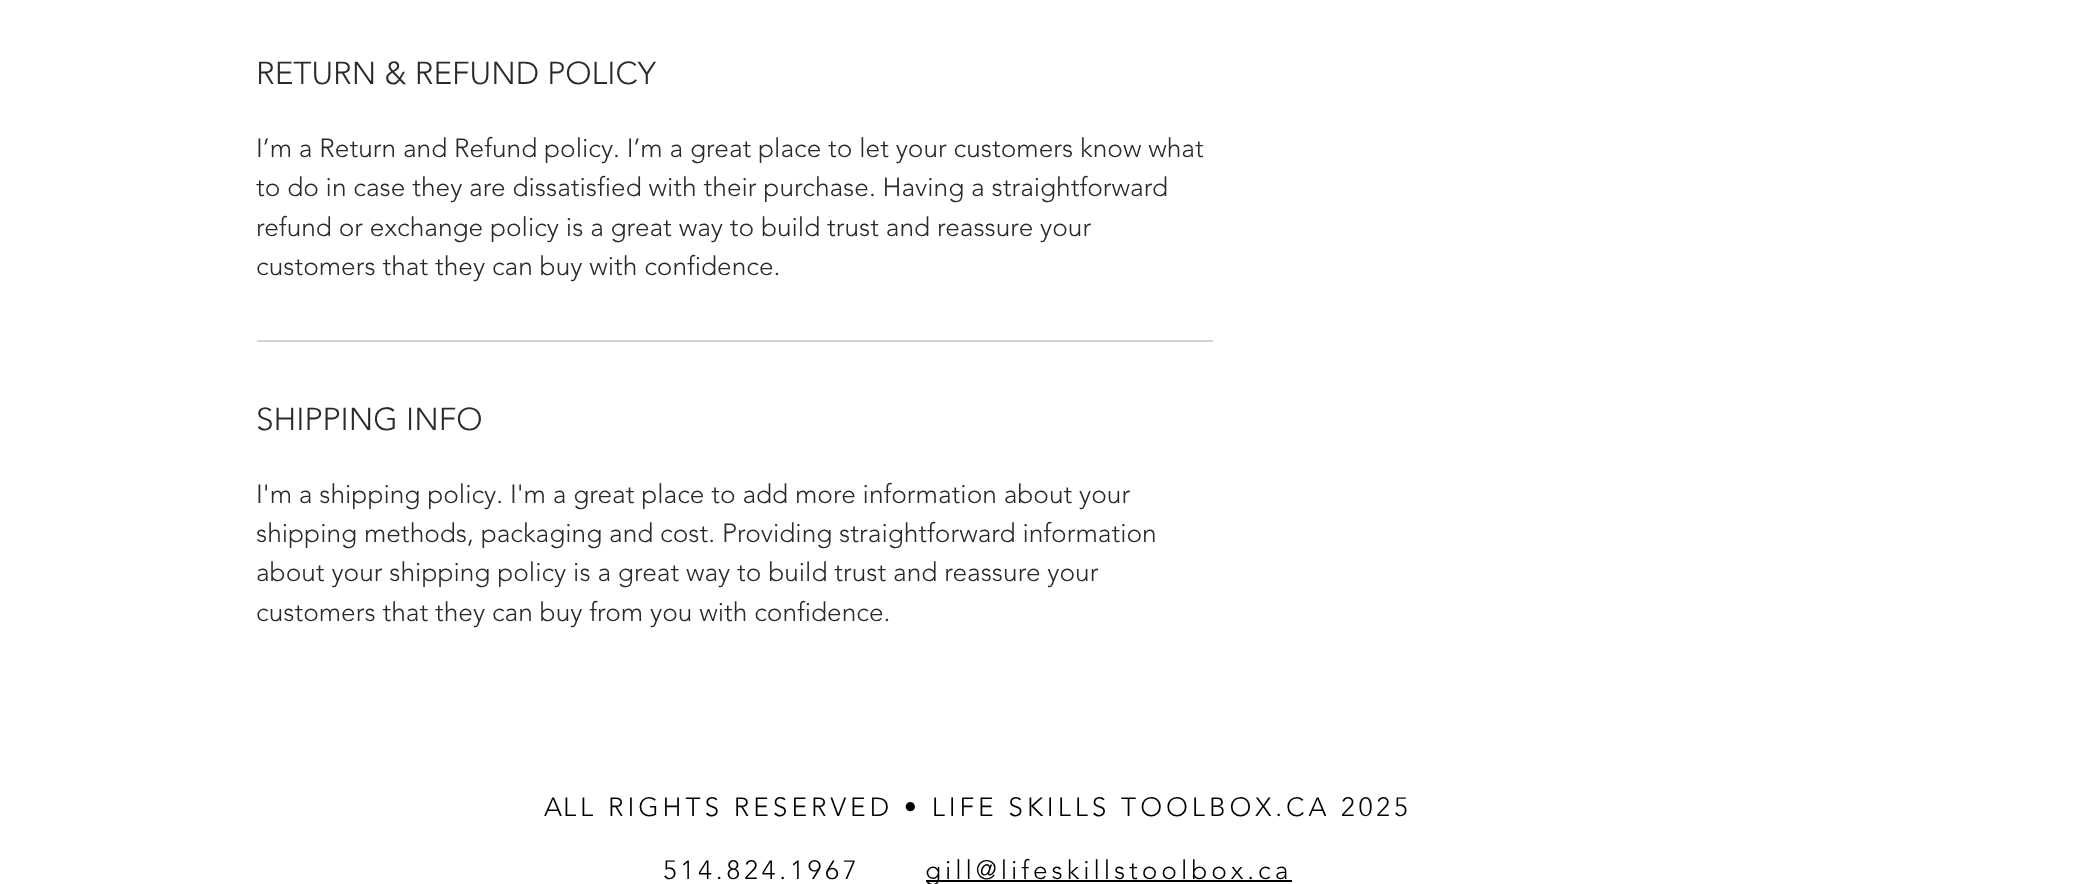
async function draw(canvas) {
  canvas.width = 2087
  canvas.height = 884
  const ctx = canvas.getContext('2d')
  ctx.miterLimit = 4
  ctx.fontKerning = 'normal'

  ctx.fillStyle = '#fff'
  ctx.fillRect(0, 0, 2087, 884)
  ctx.fillStyle = '#d4d4d4'
  ctx.fillRect(257, 340, 956, 2)
  ctx.font = '300 31.5px "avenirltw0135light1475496"'
  ctx.fillStyle = '#2a2a2a'
  ctx.fillText('RETURN & REFUND POLICY', 256, 84)
  ctx.font = '300 26.25px "avenirltw0135light1475496"'
  ctx.fillText('I’m a Return and Refund policy. I’m a great place to let your customers know what', 256, 157)
  ctx.fillText('to do in case they are dissatisfied with their purchase. Having a straightforward', 256, 196)
  ctx.fillText('refund or exchange policy is a great way to build trust and reassure your', 256, 236)
  ctx.fillText('customers that they can buy with confidence.', 256, 275)
  ctx.font = '300 31.5px "avenirltw0135light1475496"'
  ctx.fillText('SHIPPING INFO', 256, 430)
  ctx.font = '300 26.25px "avenirltw0135light1475496"'
  ctx.fillText('I\'m a shipping policy. I\'m a great place to add more information about your', 256, 503)
  ctx.fillText('shipping methods, packaging and cost. Providing straightforward information', 256, 542)
  ctx.fillText('about your shipping policy is a great way to build trust and reassure your', 256, 581)
  ctx.fillText('customers that they can buy from you with confidence.', 256, 621)
  ctx.letterSpacing = '1px'
  ctx.fillStyle = '#000'
  ctx.fillText('A', 544, 816)
  ctx.letterSpacing = '3.95px'
  ctx.fillText('LL RIGHTS RESERVED • LIFE SKILLS TOOLBOX.CA 2025', 563, 816)
  ctx.fillText('514.824.1967', 663, 879)
  ctx.fillRect(926, 880, 366, 2)
  ctx.fillText('gill@lifeskillstoolbox.ca', 925, 879)
}

draw(document.querySelector('canvas'))
